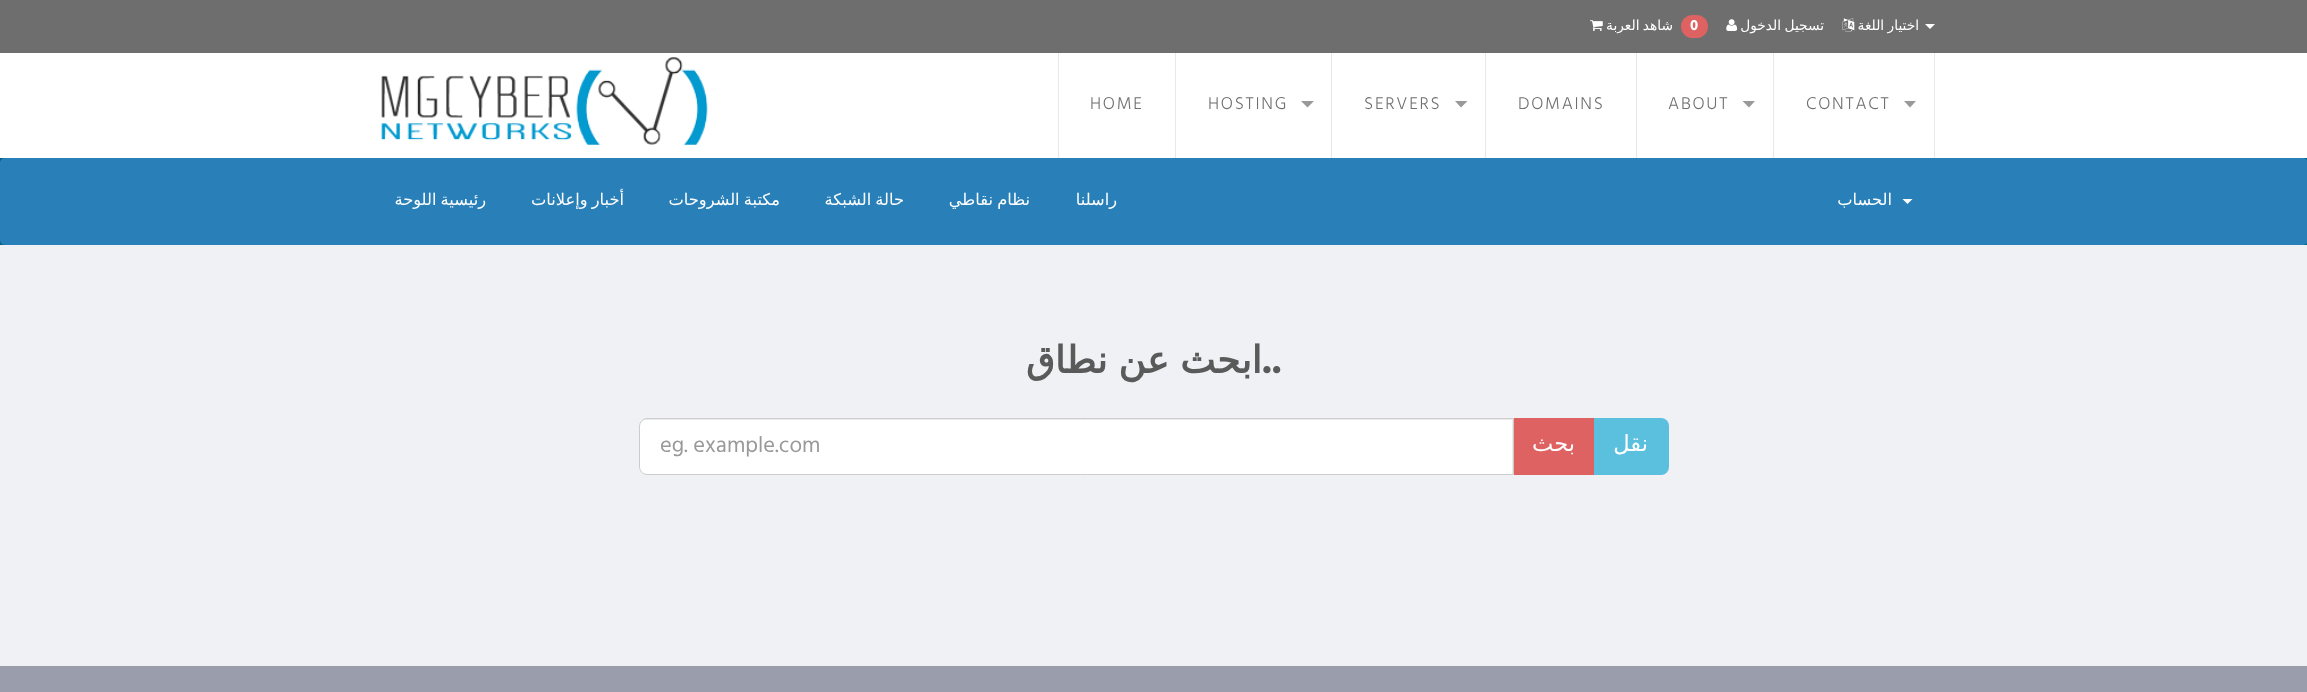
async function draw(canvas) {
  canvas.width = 2307
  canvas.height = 692
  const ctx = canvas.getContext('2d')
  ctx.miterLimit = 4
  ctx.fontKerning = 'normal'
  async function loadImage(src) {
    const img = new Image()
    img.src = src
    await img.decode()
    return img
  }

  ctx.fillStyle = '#fff'
  ctx.fillRect(0, 0, 2307, 692)
  ctx.fillStyle = '#6e6e6e'
  ctx.fillRect(0, 0, 2307, 53)
  ctx.fillStyle = '#fff'
  ctx.beginPath()
  ctx.moveTo(1925, 24)
  ctx.lineTo(1935, 24)
  ctx.lineTo(1930, 29)
  ctx.closePath()
  ctx.fill()
  ctx.wordSpacing = '-1px'
  ctx.direction = 'rtl'
  ctx.font = '13.75px DejaVu Sans'
  ctx.fillText('اختيار اللغة', 1919, 30)
  ctx.drawImage(await loadImage('image0.png'), 1842, 18, 13, 14)
  ctx.fillText('تسجيل الدخول', 1824, 30)
  ctx.drawImage(await loadImage('image1.png'), 1726, 19, 12, 12)
  ctx.fillStyle = '#de6262'
  ctx.beginPath()
  ctx.roundRect(1681, 15, 27, 23, 11.5)
  ctx.fill()
  ctx.wordSpacing = '0px'
  ctx.direction = 'ltr'
  ctx.font = 'bold 15px Hind'
  ctx.fillStyle = '#fff'
  ctx.fillText('0', 1690, 30)
  ctx.wordSpacing = '-1px'
  ctx.direction = 'rtl'
  ctx.font = '13.75px DejaVu Sans'
  ctx.fillText('شاهد العربة', 1673, 30)
  ctx.drawImage(await loadImage('image2.png'), 1590, 20, 13, 11)
  ctx.fillStyle = '#e8e8e8'
  ctx.fillRect(1934, 53, 1, 105)
  ctx.fillStyle = '#999'
  ctx.beginPath()
  ctx.moveTo(1904, 101)
  ctx.lineTo(1916, 101)
  ctx.lineTo(1910, 107.5)
  ctx.closePath()
  ctx.fill()
  ctx.letterSpacing = '1.75px'
  ctx.wordSpacing = '0px'
  ctx.direction = 'ltr'
  ctx.font = '300 17.5px Hind'
  ctx.fillStyle = '#6f6f6f'
  ctx.fillText('CONTACT', 1806, 109)
  ctx.fillStyle = '#e8e8e8'
  ctx.fillRect(1773, 53, 1, 105)
  ctx.fillStyle = '#999'
  ctx.beginPath()
  ctx.moveTo(1742.5, 101)
  ctx.lineTo(1755, 101)
  ctx.lineTo(1749, 107.5)
  ctx.closePath()
  ctx.fill()
  ctx.fillStyle = '#6f6f6f'
  ctx.fillText('ABOUT', 1668, 109)
  ctx.fillStyle = '#e8e8e8'
  ctx.fillRect(1636, 53, 1, 105)
  ctx.fillStyle = '#6f6f6f'
  ctx.fillText('DOMAINS', 1518, 109)
  ctx.fillStyle = '#e8e8e8'
  ctx.fillRect(1485, 53, 1, 105)
  ctx.fillStyle = '#999'
  ctx.beginPath()
  ctx.moveTo(1455, 101)
  ctx.lineTo(1467.5, 101)
  ctx.lineTo(1461, 107.5)
  ctx.closePath()
  ctx.fill()
  ctx.fillStyle = '#6f6f6f'
  ctx.fillText('SERVERS', 1364, 109)
  ctx.fillStyle = '#e8e8e8'
  ctx.fillRect(1331, 53, 1, 105)
  ctx.fillStyle = '#999'
  ctx.beginPath()
  ctx.moveTo(1301, 101)
  ctx.lineTo(1314, 101)
  ctx.lineTo(1307.5, 107.5)
  ctx.closePath()
  ctx.fill()
  ctx.fillStyle = '#6f6f6f'
  ctx.fillText('HOSTING', 1208, 109)
  ctx.fillStyle = '#e8e8e8'
  ctx.fillRect(1175, 53, 1, 105)
  ctx.fillRect(1058, 53, 1, 105)
  ctx.fillStyle = '#6f6f6f'
  ctx.fillText('HOME', 1090, 109)
  ctx.drawImage(await loadImage('image3.png'), 381, 57, 327, 89)
  ctx.fillStyle = '#006687'
  ctx.fillRect(0, 158, 2307, 87)
  ctx.fillStyle = '#2980b9'
  ctx.beginPath()
  ctx.roundRect(0, 158, 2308, 87, 5)
  ctx.fill()
  ctx.fillStyle = '#fff'
  ctx.beginPath()
  ctx.moveTo(1902.5, 199)
  ctx.lineTo(1912.5, 199)
  ctx.lineTo(1907.5, 204)
  ctx.closePath()
  ctx.fill()
  ctx.letterSpacing = '0px'
  ctx.direction = 'rtl'
  ctx.font = '16.25px DejaVu Sans'
  ctx.fillText('الحساب', 1892, 205)
  ctx.fillText('راسلنا', 1117, 205)
  ctx.wordSpacing = '-1px'
  ctx.fillText('نظام نقاطي', 1030, 205)
  ctx.fillText('حالة الشبكة', 904, 205)
  ctx.fillText('مكتبة الشروحات', 780, 205)
  ctx.fillText('أخبار وإعلانات', 624, 205)
  ctx.fillText('رئيسية اللوحة', 486, 205)
  ctx.fillStyle = '#f0f1f5'
  ctx.fillRect(0, 245, 2307, 421)
  ctx.wordSpacing = '0px'
  ctx.direction = 'ltr'
  ctx.font = 'bold 37.5px Montserrat'
  ctx.fillStyle = '#5a5a5a'
  ctx.fillText('..', 1262, 373)
  ctx.wordSpacing = '-1px'
  ctx.direction = 'rtl'
  ctx.font = 'bold 37.5px DejaVu Sans'
  ctx.fillText('ابحث عن نطاق', 1262, 373)
  ctx.fillStyle = '#5bc0de'
  ctx.beginPath()
  ctx.roundRect(1594, 418, 75, 57, [0, 8, 8, 0])
  ctx.fill()
  ctx.wordSpacing = '0px'
  ctx.font = '22.5px DejaVu Sans'
  ctx.fillStyle = '#fff'
  ctx.fillText('نقل', 1648, 451)
  ctx.fillStyle = '#de6262'
  ctx.fillRect(1514, 418, 80, 57)
  ctx.fillStyle = '#fff'
  ctx.fillText('بحث', 1575, 451)
  ctx.beginPath()
  ctx.roundRect(639, 418, 875, 57, [8, 0, 0, 8])
  ctx.fill()
  ctx.fillStyle = '#ececec'
  ctx.beginPath()
  ctx.moveTo(646, 420)
  ctx.lineTo(1512, 420)
  ctx.lineTo(1512, 474)
  ctx.lineTo(1513, 474)
  ctx.lineTo(1513, 419)
  ctx.lineTo(646, 419)
  ctx.bezierCurveTo(643, 419, 640, 422, 640, 425)
  ctx.lineTo(640, 426)
  ctx.bezierCurveTo(640, 423, 643, 420, 646, 420)
  ctx.closePath()
  ctx.fill()
  ctx.beginPath()
  ctx.roundRect(639.5, 418.5, 874, 56, [7.5, 0, 0, 7.5])
  ctx.strokeStyle = '#ccc'
  ctx.stroke()
  ctx.direction = 'ltr'
  ctx.font = '22.5px Hind'
  ctx.fillStyle = '#999'
  ctx.fillText('eg. example.com', 660, 452)
  ctx.fillStyle = '#9a9dac'
  ctx.fillRect(0, 666, 2307, 26)
}

draw(document.querySelector('canvas'))
